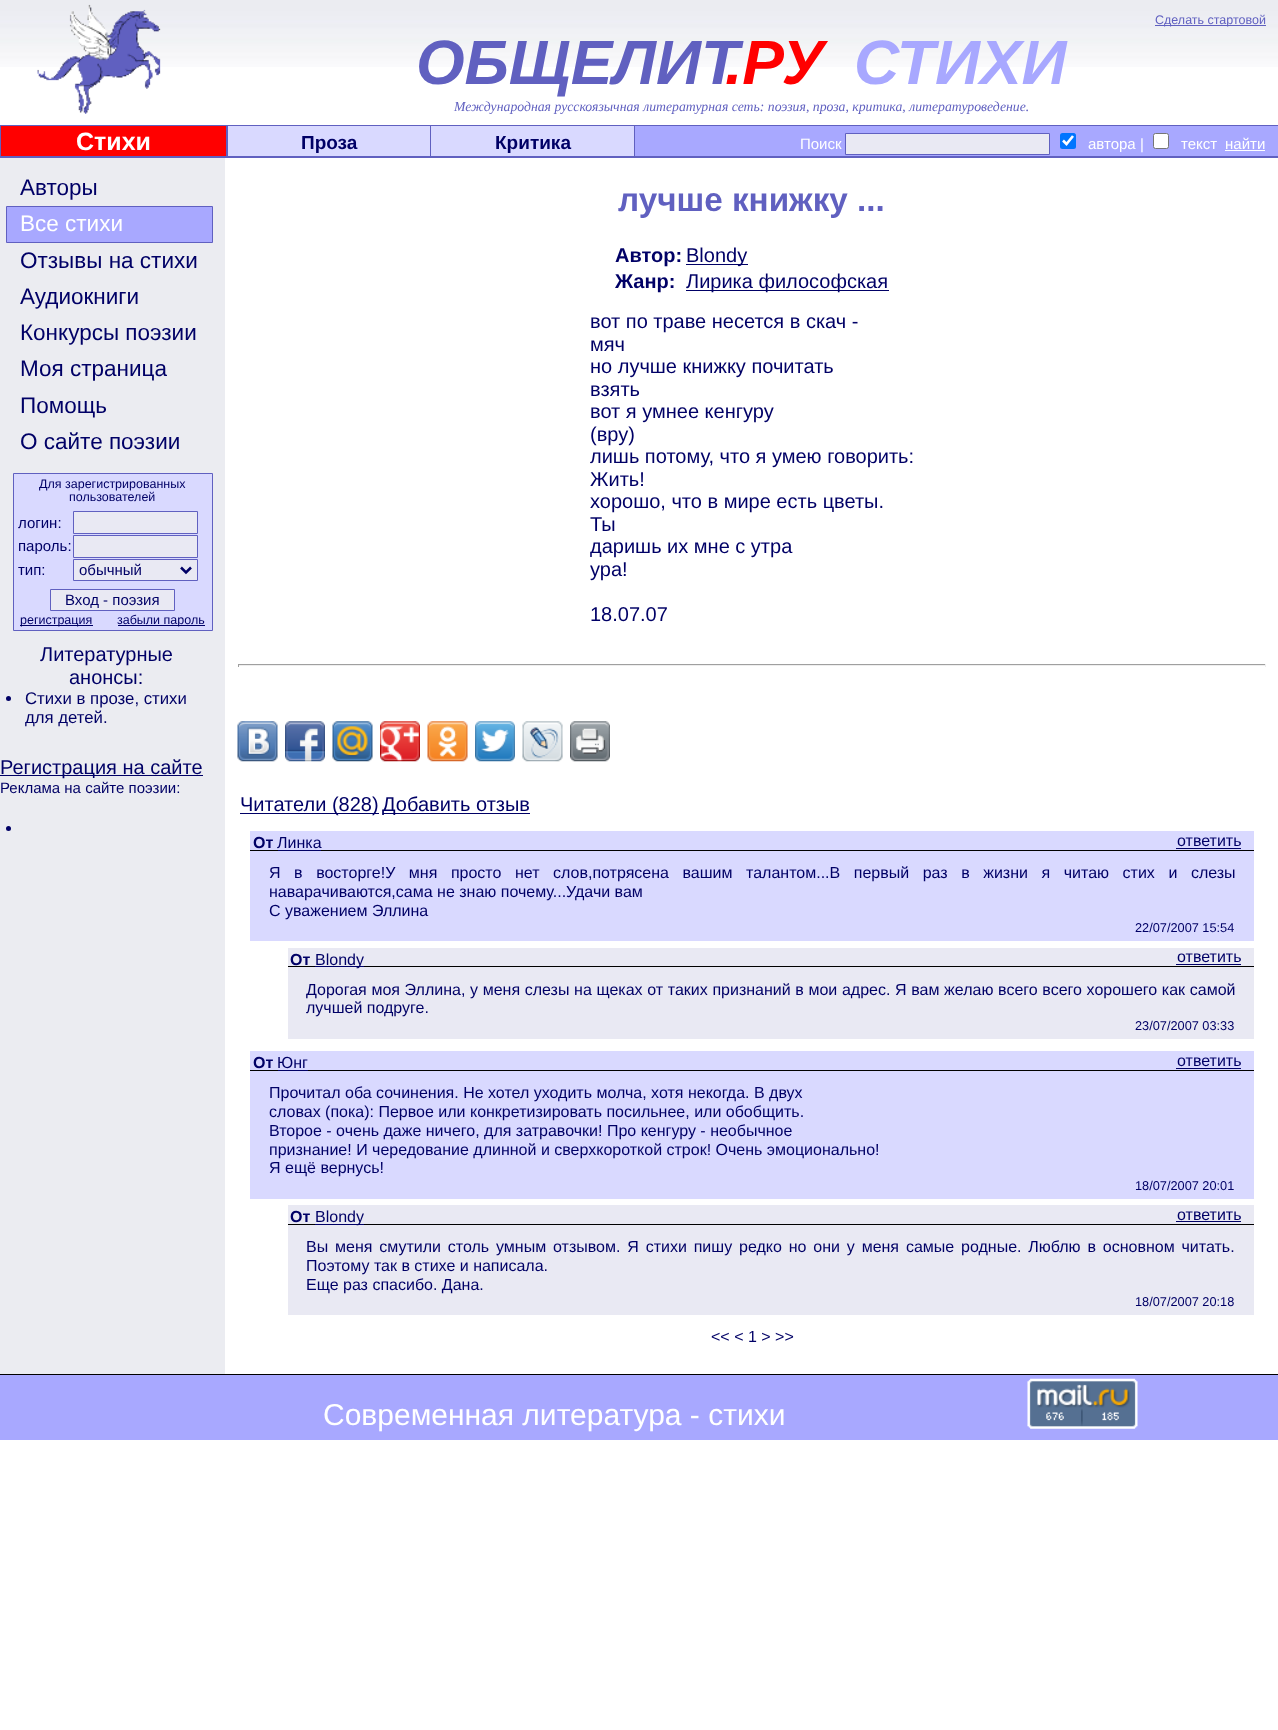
async function draw(canvas) {
  canvas.width = 1278
  canvas.height = 1730
  const ctx = canvas.getContext('2d')
  ctx.miterLimit = 4
  ctx.fontKerning = 'normal'
  async function loadImage(src) {
    const img = new Image()
    img.src = src
    await img.decode()
    return img
  }

  ctx.fillStyle = '#fff'
  ctx.fillRect(0, 0, 1278, 1730)
  ctx.drawImage(await loadImage('image0.png'), 0, 0, 1278, 67)
  ctx.drawImage(await loadImage('image1.png'), 37, 4, 124, 110)
  ctx.fillStyle = '#6060c0'
  ctx.fillRect(1155, 25, 111, 1)
  ctx.font = '12.5px Liberation Sans'
  ctx.fillText('Сделать стартовой', 1155, 24)
  ctx.font = 'italic bold 62.5px Liberation Sans'
  ctx.fillText('ОБЩЕЛИТ', 416, 84)
  ctx.fillStyle = '#f00'
  ctx.fillText('.РУ', 725, 84)
  ctx.fillStyle = '#a8a8ff'
  ctx.fillText('СТИХИ', 854, 84)
  ctx.font = 'italic 13.75px Liberation Serif'
  ctx.fillStyle = '#6060c0'
  ctx.fillText('Международная русскоязычная литературная сеть: поэзия, проза, критика, литературоведение.', 454, 111)
  ctx.fillRect(0, 125, 1278, 33)
  ctx.fillStyle = '#f00'
  ctx.fillRect(1, 126, 225, 30)
  ctx.font = 'bold 25px Liberation Sans'
  ctx.fillStyle = '#fff'
  ctx.fillText('Стихи', 76, 150)
  ctx.fillStyle = '#d9d9ff'
  ctx.fillRect(228, 126, 202, 30)
  ctx.font = 'bold 19px Liberation Sans'
  ctx.fillStyle = '#006'
  ctx.fillText('Проза', 301, 149)
  ctx.fillStyle = '#d9d9ff'
  ctx.fillRect(431, 126, 203, 30)
  ctx.fillStyle = '#006'
  ctx.fillText('Критика', 495, 149)
  ctx.fillStyle = '#a8a8ff'
  ctx.fillRect(635, 126, 643, 30)
  ctx.font = '15px Liberation Sans'
  ctx.fillStyle = '#fff'
  ctx.fillText('Поиск', 800, 149)
  ctx.fillStyle = '#e9e9f3'
  ctx.beginPath()
  ctx.rect(845.5, 133.5, 204, 21)
  ctx.fill()
  ctx.strokeStyle = '#6060c0'
  ctx.stroke()
  ctx.fillStyle = '#0075ff'
  ctx.beginPath()
  ctx.roundRect(1060, 133, 16, 16, 2.5)
  ctx.fill()
  ctx.beginPath()
  ctx.moveTo(1063, 140.5)
  ctx.lineTo(1066.5, 144)
  ctx.lineTo(1073, 136)
  ctx.strokeStyle = '#fff'
  ctx.lineWidth = 2.6
  ctx.stroke()
  ctx.fillStyle = '#fff'
  ctx.fillText('автора |', 1088, 149)
  ctx.beginPath()
  ctx.roundRect(1153.5, 133.5, 15, 15, 2)
  ctx.fill()
  ctx.strokeStyle = '#767676'
  ctx.lineWidth = 1
  ctx.stroke()
  ctx.fillText('текст', 1181, 149)
  ctx.fillText('найти', 1225, 149)
  ctx.fillRect(1225, 150, 40, 1)
  ctx.fillStyle = '#ebecf1'
  ctx.fillRect(0, 158, 225, 1216)
  ctx.font = '22.5px Liberation Sans'
  ctx.fillStyle = '#006'
  ctx.fillText('Авторы', 20, 195)
  ctx.fillStyle = '#a8a8ff'
  ctx.beginPath()
  ctx.rect(6.5, 206.5, 206, 36)
  ctx.fill()
  ctx.strokeStyle = '#6060c0'
  ctx.stroke()
  ctx.fillStyle = '#fff'
  ctx.fillText('Все стихи', 20, 231)
  ctx.fillStyle = '#006'
  ctx.fillText('Отзывы на стихи', 20, 268)
  ctx.fillText('Аудиокниги', 20, 304)
  ctx.fillText('Конкурсы поэзии', 20, 340)
  ctx.fillText('Моя страница', 20, 376)
  ctx.fillText('Помощь', 20, 413)
  ctx.fillText('О сайте поэзии', 20, 449)
  ctx.fillStyle = '#d9d9ff'
  ctx.beginPath()
  ctx.rect(13.5, 473.5, 199, 157)
  ctx.fill()
  ctx.stroke()
  ctx.font = '12.5px Liberation Sans'
  ctx.fillStyle = '#006'
  ctx.fillText('Для зарегистрированных', 39, 488)
  ctx.fillText('пользователей', 69, 501)
  ctx.font = '15px Liberation Sans'
  ctx.fillText('логин:', 18, 528)
  ctx.fillStyle = '#e9e9f3'
  ctx.beginPath()
  ctx.rect(73.5, 511.5, 124, 22)
  ctx.fill()
  ctx.stroke()
  ctx.fillStyle = '#006'
  ctx.fillText('пароль:', 18, 551)
  ctx.fillStyle = '#e9e9f3'
  ctx.beginPath()
  ctx.rect(73.5, 535.5, 124, 22)
  ctx.fill()
  ctx.stroke()
  ctx.fillStyle = '#006'
  ctx.fillText('тип:', 18, 575)
  ctx.fillStyle = '#e9e9f3'
  ctx.beginPath()
  ctx.rect(73.5, 559.5, 124, 21)
  ctx.fill()
  ctx.stroke()
  ctx.beginPath()
  ctx.moveTo(181, 567.5)
  ctx.lineTo(186, 572.5)
  ctx.lineTo(191, 567.5)
  ctx.strokeStyle = '#006'
  ctx.lineWidth = 2.5
  ctx.stroke()
  ctx.fillStyle = '#006'
  ctx.fillText('обычный', 79, 575)
  ctx.fillStyle = '#e9e9f3'
  ctx.beginPath()
  ctx.rect(50.5, 589.5, 124, 21)
  ctx.fill()
  ctx.strokeStyle = '#6060c0'
  ctx.lineWidth = 1
  ctx.stroke()
  ctx.fillStyle = '#006'
  ctx.fillText('Вход - поэзия', 65, 605)
  ctx.fillRect(20, 625, 73, 1)
  ctx.font = '12.5px Liberation Sans'
  ctx.fillText('регистрация', 20, 624)
  ctx.fillRect(118, 625, 87, 1)
  ctx.fillText('забыли пароль', 117, 624)
  ctx.font = '20px Liberation Sans'
  ctx.fillText('Литературные', 40, 661)
  ctx.fillText('анонсы:', 69, 684)
  ctx.beginPath()
  ctx.arc(8.5, 698.5, 2.5, 0, 2 * Math.PI)
  ctx.fill()
  ctx.font = '16.75px Liberation Sans'
  ctx.fillText('Стихи в прозе, стихи', 25, 704)
  ctx.fillText('для детей.', 25, 723)
  ctx.fillRect(0, 775, 203, 1)
  ctx.font = '20px Liberation Sans'
  ctx.fillText('Регистрация на сайте', 0, 774)
  ctx.font = '15px Liberation Sans'
  ctx.fillText('Реклама на сайте поэзии:', 0, 793)
  ctx.beginPath()
  ctx.arc(8.5, 828.5, 2.5, 0, 2 * Math.PI)
  ctx.fill()
  ctx.font = 'bold 33.25px Liberation Sans'
  ctx.fillStyle = '#6060c0'
  ctx.fillText('лучше книжку ...', 618, 211)
  ctx.font = 'bold 20px Liberation Sans'
  ctx.fillStyle = '#006'
  ctx.fillText('Автор:', 615, 262)
  ctx.fillRect(686, 264, 62, 1)
  ctx.font = '20px Liberation Sans'
  ctx.fillText('Blondy', 686, 262)
  ctx.font = 'bold 20px Liberation Sans'
  ctx.fillText('Жанр:', 615, 288)
  ctx.fillRect(686, 290, 203, 1)
  ctx.font = '20px Liberation Sans'
  ctx.fillText('Лирика философская', 686, 288)
  ctx.fillText('вот по траве несется в скач -', 590, 328)
  ctx.fillText('мяч', 590, 351)
  ctx.fillText('но лучше книжку почитать', 590, 373)
  ctx.fillText('взять', 590, 396)
  ctx.fillText('вот я умнее кенгуру', 590, 418)
  ctx.fillText('(вру)', 590, 441)
  ctx.fillText('лишь потому, что я умею говорить:', 590, 463)
  ctx.fillText('Жить!', 590, 486)
  ctx.fillText('хорошо, что в мире есть цветы.', 590, 508)
  ctx.fillText('Ты', 590, 531)
  ctx.fillText('даришь их мне с утра', 590, 553)
  ctx.fillText('ура!', 590, 576)
  ctx.fillText('18.07.07', 590, 621)
  ctx.fillStyle = '#9f9f9f'
  ctx.fillRect(238, 664, 1028, 1)
  ctx.fillStyle = '#eee'
  ctx.fillRect(1265, 664, 1, 3)
  ctx.fillRect(238, 665, 1028, 1)
  ctx.fillStyle = '#9f9f9f'
  ctx.fillRect(238, 664, 1, 3)
  ctx.drawImage(await loadImage('image2.png'), 237, 721, 41, 41)
  ctx.drawImage(await loadImage('image3.png'), 285, 721, 40, 41)
  ctx.drawImage(await loadImage('image4.png'), 332, 721, 41, 41)
  ctx.drawImage(await loadImage('image5.png'), 380, 721, 40, 41)
  ctx.drawImage(await loadImage('image6.png'), 427, 721, 41, 41)
  ctx.drawImage(await loadImage('image7.png'), 475, 721, 40, 41)
  ctx.drawImage(await loadImage('image8.png'), 522, 721, 41, 41)
  ctx.drawImage(await loadImage('image9.png'), 570, 721, 40, 41)
  ctx.fillStyle = '#006'
  ctx.fillRect(240, 813, 139, 1)
  ctx.fillText('Читатели (828)', 240, 811)
  ctx.fillRect(383, 813, 147, 1)
  ctx.fillText('Добавить отзыв', 382, 811)
  ctx.fillStyle = '#d9d9ff'
  ctx.fillRect(250, 831, 1004, 110)
  ctx.font = 'bold 16px Liberation Sans'
  ctx.fillStyle = '#006'
  ctx.fillText('От', 253, 848)
  ctx.font = '16px Liberation Sans'
  ctx.fillText('Линка', 277, 848)
  ctx.fillStyle = '#000'
  ctx.fillRect(250, 850, 1004, 1)
  ctx.fillStyle = '#006'
  ctx.fillRect(278, 850, 43, 1)
  ctx.fillText('ответить', 1177, 846)
  ctx.fillRect(1176, 848, 65, 1)
  ctx.wordSpacing = '9.1px'
  ctx.fillText('Я в восторге!У мня просто нет слов,потрясена вашим талантом...В первый раз в жизни я читаю стих и слезы', 269, 878)
  ctx.wordSpacing = '0px'
  ctx.fillText('наварачиваются,сама не знаю почему...Удачи вам', 269, 897)
  ctx.fillText('С уважением Эллина', 269, 916)
  ctx.font = '12.75px Liberation Sans'
  ctx.fillText('22/07/2007 15:54', 1135, 932)
  ctx.fillStyle = '#e9e9f3'
  ctx.fillRect(288, 948, 966, 91)
  ctx.font = 'bold 16px Liberation Sans'
  ctx.fillStyle = '#006'
  ctx.fillText('От', 290, 965)
  ctx.fillStyle = '#000'
  ctx.fillRect(288, 966, 966, 1)
  ctx.fillStyle = '#006'
  ctx.fillRect(315, 966, 49, 1)
  ctx.font = '16px Liberation Sans'
  ctx.fillText('Blondy', 315, 965)
  ctx.fillText('ответить', 1177, 962)
  ctx.fillRect(1176, 964, 65, 1)
  ctx.wordSpacing = '0.2px'
  ctx.fillText('Дорогая моя Эллина, у меня слезы на щеках от таких признаний в мои адрес. Я вам желаю всего всего хорошего как самой', 306, 995)
  ctx.wordSpacing = '0px'
  ctx.fillText('лучшей подруге.', 306, 1013)
  ctx.font = '12.75px Liberation Sans'
  ctx.fillText('23/07/2007 03:33', 1135, 1030)
  ctx.fillStyle = '#d9d9ff'
  ctx.fillRect(250, 1051, 1004, 148)
  ctx.font = 'bold 16px Liberation Sans'
  ctx.fillStyle = '#006'
  ctx.fillText('От', 253, 1068)
  ctx.font = '16px Liberation Sans'
  ctx.fillText('Юнг', 277, 1068)
  ctx.fillStyle = '#000'
  ctx.fillRect(250, 1070, 1004, 1)
  ctx.fillStyle = '#006'
  ctx.fillRect(278, 1070, 30, 1)
  ctx.fillText('ответить', 1177, 1066)
  ctx.fillRect(1176, 1068, 65, 1)
  ctx.fillText('Прочитал оба сочинения. Не хотел уходить молча, хотя некогда. В двух', 269, 1098)
  ctx.fillText('словах (пока): Первое или конкретизировать посильнее, или обобщить.', 269, 1117)
  ctx.fillText('Второе - очень даже ничего, для затравочки! Про кенгуру - необычное', 269, 1136)
  ctx.fillText('признание! И чередование длинной и сверхкороткой строк! Очень эмоционально!', 269, 1155)
  ctx.fillText('Я ещё вернусь!', 269, 1173)
  ctx.font = '12.75px Liberation Sans'
  ctx.fillText('18/07/2007 20:01', 1135, 1190)
  ctx.fillStyle = '#e9e9f3'
  ctx.fillRect(288, 1205, 966, 110)
  ctx.font = 'bold 16px Liberation Sans'
  ctx.fillStyle = '#006'
  ctx.fillText('От', 290, 1222)
  ctx.fillStyle = '#000'
  ctx.fillRect(288, 1224, 966, 1)
  ctx.fillStyle = '#006'
  ctx.fillRect(315, 1224, 49, 1)
  ctx.font = '16px Liberation Sans'
  ctx.fillText('Blondy', 315, 1222)
  ctx.fillText('ответить', 1177, 1220)
  ctx.fillRect(1176, 1221, 65, 1)
  ctx.wordSpacing = '2.4px'
  ctx.fillText('Вы меня смутили столь умным отзывом. Я стихи пишу редко но они у меня самые родные. Люблю в основном читать.', 306, 1252)
  ctx.wordSpacing = '0px'
  ctx.fillText('Поэтому так в стихе и написала.', 306, 1271)
  ctx.fillText('Еще раз спасибо. Дана.', 306, 1290)
  ctx.font = '12.75px Liberation Sans'
  ctx.fillText('18/07/2007 20:18', 1135, 1306)
  ctx.font = '16px Liberation Sans'
  ctx.fillText('<< < 1 > >>', 711, 1342)
  ctx.fillStyle = '#a8a8ff'
  ctx.fillRect(0, 1375, 1278, 65)
  ctx.fillStyle = '#000'
  ctx.fillRect(0, 1374, 1278, 1)
  ctx.font = '30px Liberation Sans'
  ctx.fillStyle = '#fff'
  ctx.fillText('Современная литература - стихи', 323, 1425)
  ctx.drawImage(await loadImage('image10.png'), 1027, 1378, 111, 51)
}

draw(document.querySelector('canvas'))
